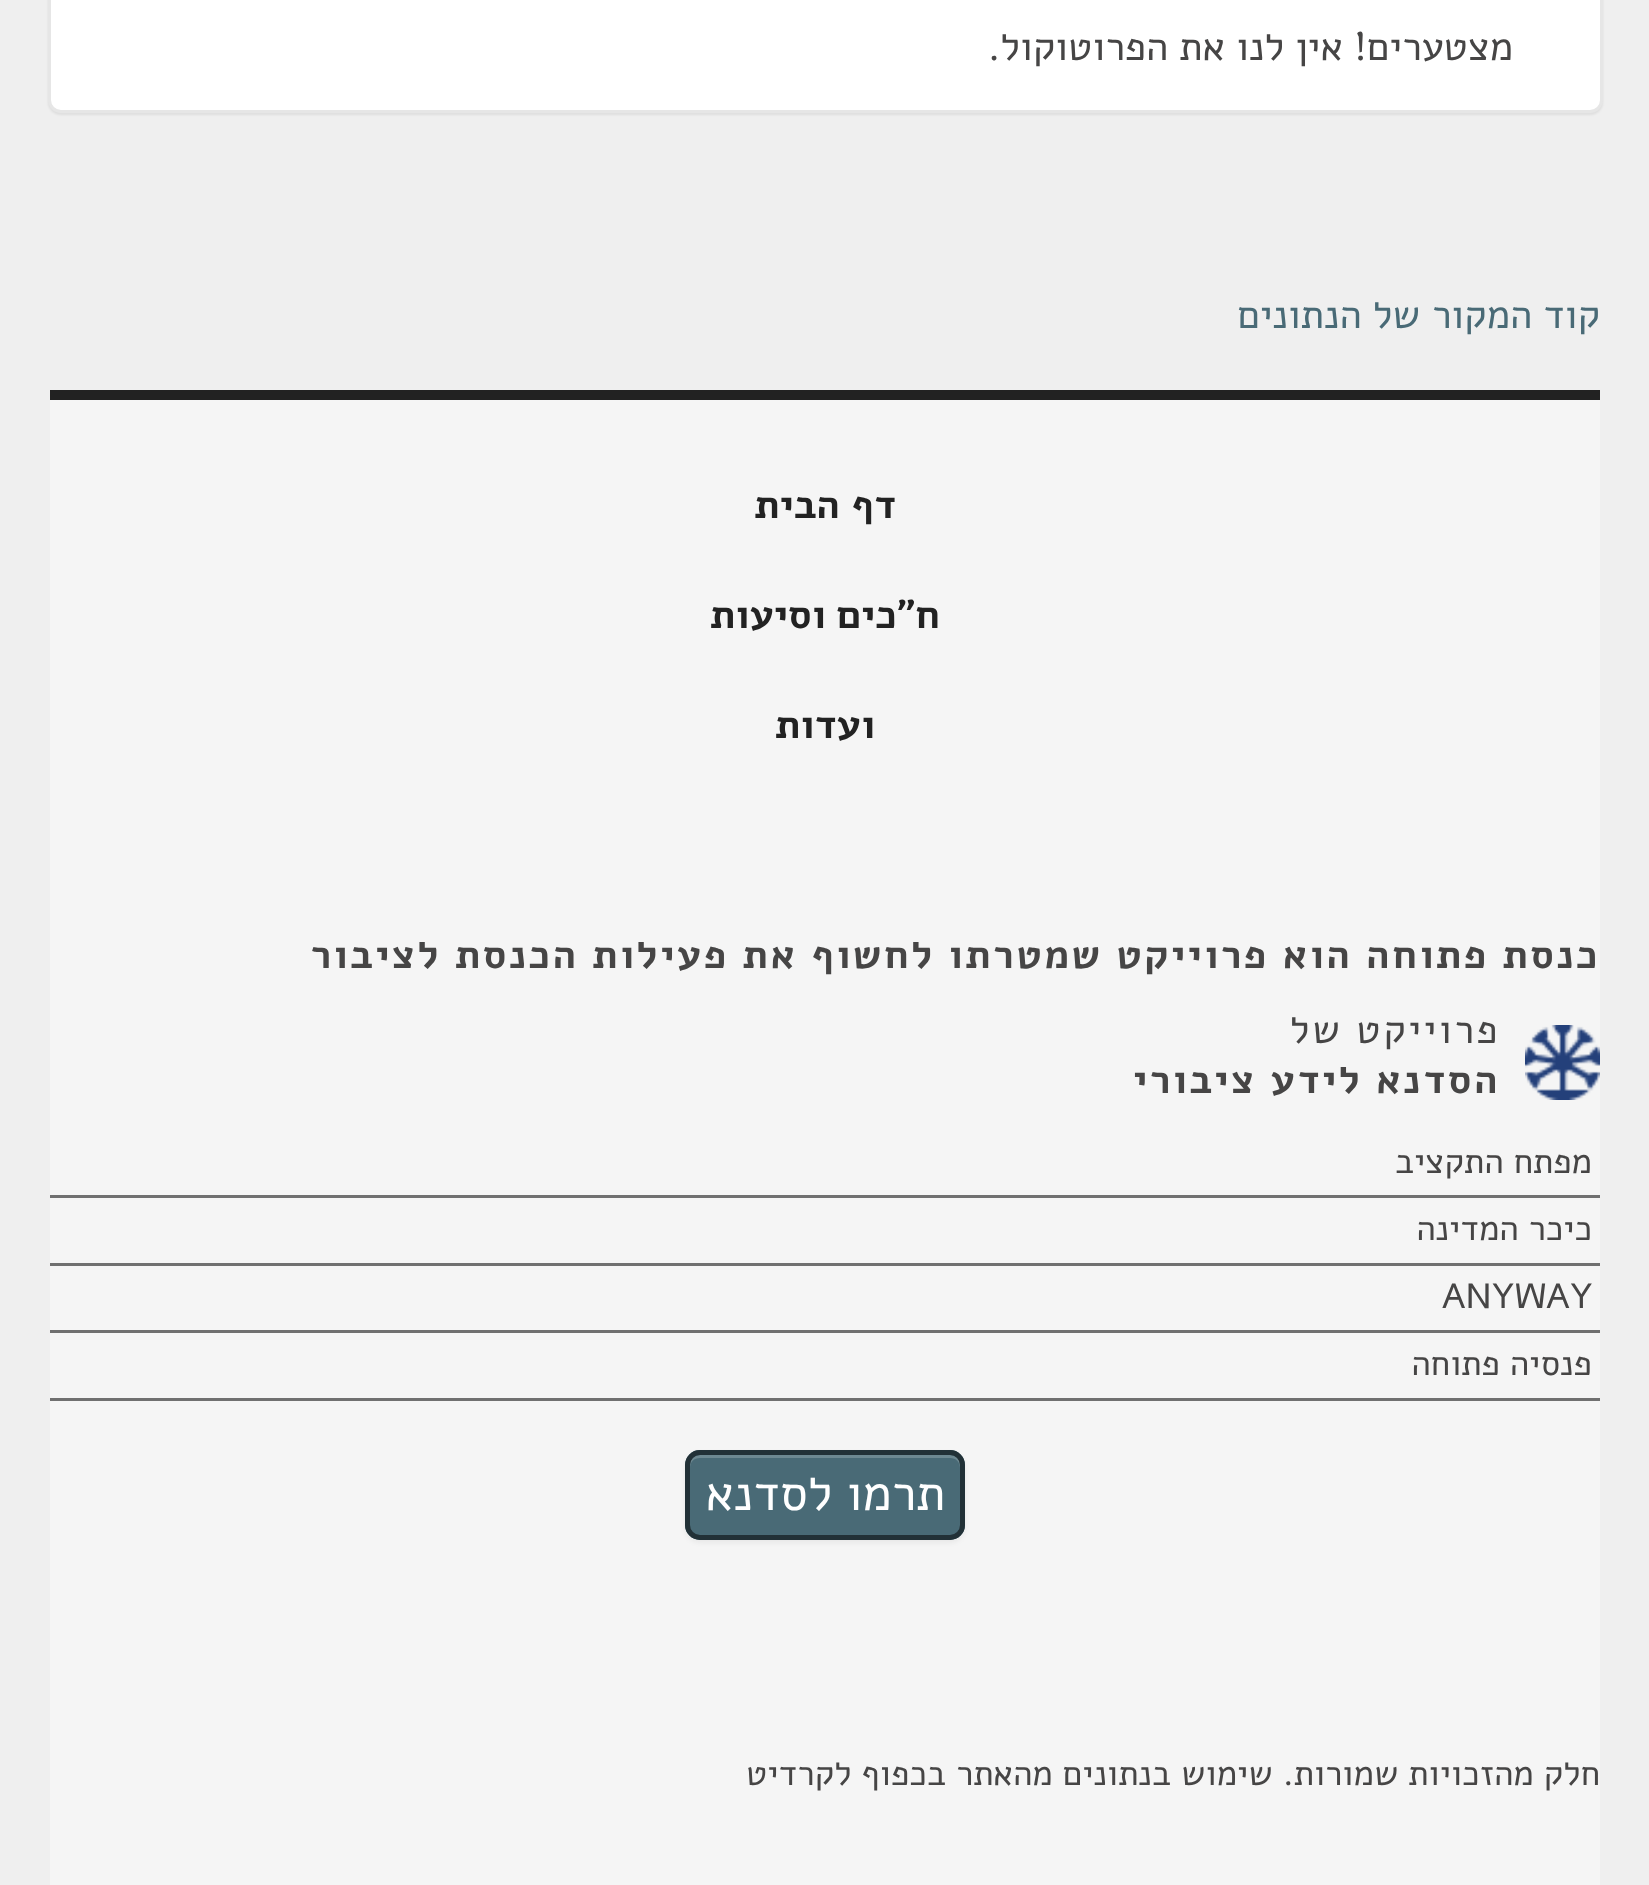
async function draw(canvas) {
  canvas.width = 1649
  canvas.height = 1885
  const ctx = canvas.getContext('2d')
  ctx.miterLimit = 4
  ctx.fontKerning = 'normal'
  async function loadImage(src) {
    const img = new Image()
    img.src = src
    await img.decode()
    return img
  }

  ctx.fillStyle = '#efefef'
  ctx.fillRect(0, 0, 1649, 1885)
  ctx.fillStyle = '#00000012'
  ctx.filter = 'blur(1px)'
  ctx.beginPath()
  ctx.roundRect(48, -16, 1555, 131, 13)
  ctx.fill()
  ctx.filter = 'none'
  ctx.fillStyle = '#fff'
  ctx.beginPath()
  ctx.roundRect(49.5, -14.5, 1552, 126, 11.5)
  ctx.fill()
  ctx.strokeStyle = '#e6e6e6'
  ctx.lineWidth = 3
  ctx.stroke()
  ctx.direction = 'rtl'
  ctx.font = '40px Alef'
  ctx.fillStyle = '#464545'
  ctx.fillText('מצטערים! אין לנו את הפרוטוקול.', 1513, 60)
  ctx.fillStyle = '#496a76'
  ctx.fillText('קוד המקור של הנתונים', 1600, 328)
  ctx.fillStyle = '#f5f5f5'
  ctx.fillRect(50, 400, 1550, 1485)
  ctx.fillStyle = '#222'
  ctx.fillRect(50, 390, 1550, 10)
  ctx.font = 'bold 40px Alef'
  ctx.fillText('דף הבית', 896, 518)
  ctx.fillText('ח"כים וסיעות', 940, 628)
  ctx.fillText('ועדות', 875, 738)
  ctx.letterSpacing = '2.5px'
  ctx.fillStyle = '#464545'
  ctx.fillText('כנסת פתוחה הוא פרוייקט שמטרתו לחשוף את פעילות הכנסת לציבור', 1600, 968)
  ctx.drawImage(await loadImage('image0.png'), 1525, 1025, 75, 75)
  ctx.font = '40px Alef'
  ctx.fillText('פרוייקט של', 1500, 1043)
  ctx.font = 'bold 40px Alef'
  ctx.fillText('הסדנא לידע ציבורי', 1500, 1093)
  ctx.fillStyle = '#707070'
  ctx.fillRect(50, 1195, 1550, 3)
  ctx.letterSpacing = '0px'
  ctx.font = '35px Alef'
  ctx.fillStyle = '#464545'
  ctx.fillText('מפתח התקציב', 1592, 1173)
  ctx.fillStyle = '#707070'
  ctx.fillRect(50, 1263, 1550, 3)
  ctx.fillStyle = '#464545'
  ctx.fillText('כיכר המדינה', 1592, 1240)
  ctx.fillStyle = '#707070'
  ctx.fillRect(50, 1330, 1550, 3)
  ctx.direction = 'ltr'
  ctx.fillStyle = '#464545'
  ctx.fillText('ANYWAY', 1442, 1308)
  ctx.fillStyle = '#707070'
  ctx.fillRect(50, 1398, 1550, 3)
  ctx.direction = 'rtl'
  ctx.fillStyle = '#464545'
  ctx.fillText('פנסיה פתוחה', 1592, 1375)
  ctx.fillStyle = '#0000000d'
  ctx.filter = 'blur(2.5px)'
  ctx.beginPath()
  ctx.roundRect(685, 1453, 280, 90, 15)
  ctx.fill()
  ctx.filter = 'none'
  ctx.fillStyle = '#496a76'
  ctx.beginPath()
  ctx.roundRect(685, 1450, 280, 90, 15)
  ctx.fill()
  ctx.fillStyle = '#6d8891'
  ctx.beginPath()
  ctx.moveTo(700, 1458)
  ctx.lineTo(950, 1458)
  ctx.bezierCurveTo(956, 1458, 960, 1462, 960, 1468)
  ctx.lineTo(960, 1465)
  ctx.bezierCurveTo(960, 1459, 956, 1455, 950, 1455)
  ctx.lineTo(700, 1455)
  ctx.bezierCurveTo(694, 1455, 690, 1459, 690, 1465)
  ctx.lineTo(690, 1468)
  ctx.bezierCurveTo(690, 1462, 694, 1458, 700, 1458)
  ctx.closePath()
  ctx.fill()
  ctx.beginPath()
  ctx.roundRect(687.5, 1452.5, 275, 85, 12.5)
  ctx.strokeStyle = '#223137'
  ctx.lineWidth = 5
  ctx.stroke()
  ctx.font = '50px Alef'
  ctx.fillStyle = '#fff'
  ctx.fillText('תרמו לסדנא', 945, 1510)
  ctx.font = '35px Alef'
  ctx.fillStyle = '#464545'
  ctx.fillText('חלק מהזכויות שמורות. שימוש בנתונים מהאתר בכפוף לקרדיט', 1600, 1785)
}

draw(document.querySelector('canvas'))
